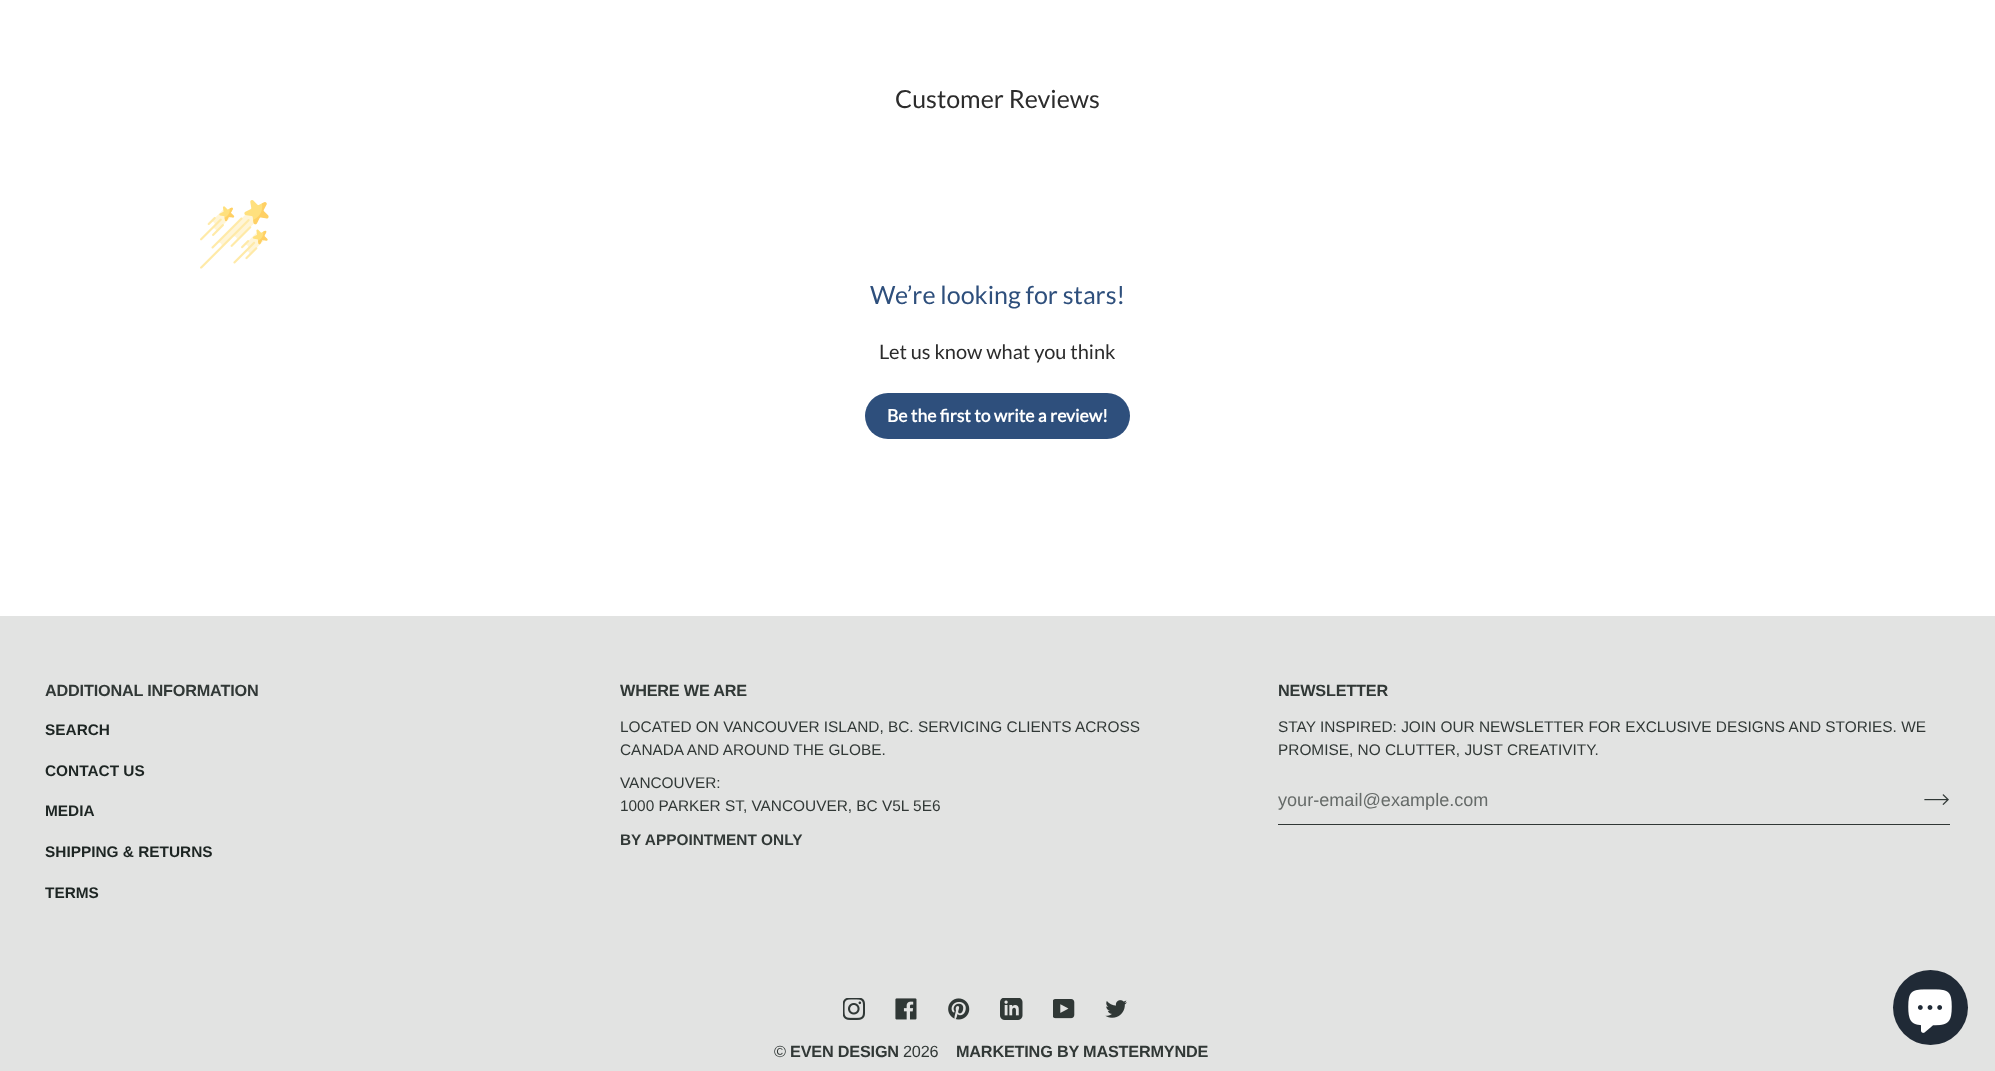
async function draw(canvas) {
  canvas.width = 1995
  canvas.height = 1071
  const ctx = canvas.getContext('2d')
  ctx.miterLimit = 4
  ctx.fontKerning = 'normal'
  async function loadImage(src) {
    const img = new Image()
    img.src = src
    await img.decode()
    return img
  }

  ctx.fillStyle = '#fff'
  ctx.fillRect(0, 0, 1995, 1071)
  ctx.font = '25px Lato'
  ctx.fillStyle = '#2c2c2c'
  ctx.fillText('Customer Reviews', 895, 108)
  ctx.drawImage(await loadImage('image0.png'), 200, 200, 69, 69)
  ctx.fillStyle = '#2e4f7c'
  ctx.fillText('We’re looking for stars!', 870, 304)
  ctx.font = '20px Lato'
  ctx.fillStyle = '#2c2c2c'
  ctx.fillText('Let us know what you think', 879, 359)
  ctx.fillStyle = '#2e4f7c'
  ctx.beginPath()
  ctx.roundRect(865, 393, 265, 46, 23)
  ctx.fill()
  ctx.font = 'bold 17.5px Lato'
  ctx.fillStyle = '#fff'
  ctx.fillText('Be the first to write a review!', 887, 422)
  ctx.fillStyle = '#e2e3e2'
  ctx.fillRect(0, 616, 1995, 455)
  ctx.letterSpacing = '-0.2px'
  ctx.font = 'bold 16.25px Liberation Sans'
  ctx.fillStyle = '#313836'
  ctx.fillText('ADDITIONAL INFORMATION', 45, 696)
  ctx.letterSpacing = '0px'
  ctx.font = 'bold 15.4px Liberation Sans'
  ctx.fillStyle = '#1d2523'
  ctx.fillText('SEARCH', 45, 735)
  ctx.fillText('CONTACT US', 45, 776)
  ctx.fillText('MEDIA', 45, 816)
  ctx.fillText('SHIPPING & RETURNS', 45, 857)
  ctx.fillText('TERMS', 45, 898)
  ctx.letterSpacing = '-0.2px'
  ctx.font = 'bold 16.25px Liberation Sans'
  ctx.fillStyle = '#313836'
  ctx.fillText('WHERE WE ARE', 620, 696)
  ctx.letterSpacing = '0px'
  ctx.font = '15.4px Liberation Sans'
  ctx.fillText('LOCATED ON VANCOUVER ISLAND, BC. SERVICING CLIENTS ACROSS', 620, 732)
  ctx.fillText('CANADA AND AROUND THE GLOBE.', 620, 755)
  ctx.fillText('VANCOUVER:', 620, 788)
  ctx.fillText('1000 PARKER ST, VANCOUVER, BC V5L 5E6', 620, 811)
  ctx.font = 'bold 15.4px Liberation Sans'
  ctx.fillText('BY APPOINTMENT ONLY', 620, 845)
  ctx.letterSpacing = '-0.2px'
  ctx.font = 'bold 16.25px Liberation Sans'
  ctx.fillText('NEWSLETTER', 1278, 696)
  ctx.letterSpacing = '0px'
  ctx.font = '15.4px Liberation Sans'
  ctx.fillText('STAY INSPIRED: JOIN OUR NEWSLETTER FOR EXCLUSIVE DESIGNS AND STORIES. WE', 1278, 732)
  ctx.fillText('PROMISE, NO CLUTTER, JUST CREATIVITY.', 1278, 755)
  ctx.fillRect(1278, 824, 672, 1)
  ctx.font = '18.1px Liberation Sans'
  ctx.fillStyle = '#666b69'
  ctx.fillText('your-email@example.com', 1278, 806)
  ctx.drawImage(await loadImage('image1.png'), 1924, 794, 25, 11)
  ctx.fillStyle = '#202a36'
  ctx.beginPath()
  ctx.arc(1930.5, 1007.5, 37.5, 0, 2 * Math.PI)
  ctx.fill()
  ctx.drawImage(await loadImage('image2.png'), 1908, 989, 44, 44)
  ctx.drawImage(await loadImage('image3.png'), 843, 998, 22, 22)
  ctx.drawImage(await loadImage('image4.png'), 895, 998, 22, 22)
  ctx.drawImage(await loadImage('image5.png'), 948, 998, 22, 22)
  ctx.drawImage(await loadImage('image6.png'), 1000, 998, 23, 22)
  ctx.drawImage(await loadImage('image7.png'), 1053, 999, 22, 20)
  ctx.drawImage(await loadImage('image8.png'), 1105, 1000, 22, 18)
  ctx.letterSpacing = '-0.2px'
  ctx.font = '16.25px Liberation Sans'
  ctx.fillStyle = '#313836'
  ctx.fillText('©', 774, 1057)
  ctx.font = 'bold 16.25px Liberation Sans'
  ctx.fillText('EVEN DESIGN', 790, 1057)
  ctx.font = '16.25px Liberation Sans'
  ctx.fillText('2026', 903, 1057)
  ctx.font = 'bold 16.25px Liberation Sans'
  ctx.fillText('MARKETING BY MASTERMYNDE', 956, 1057)
}

draw(document.querySelector('canvas'))
